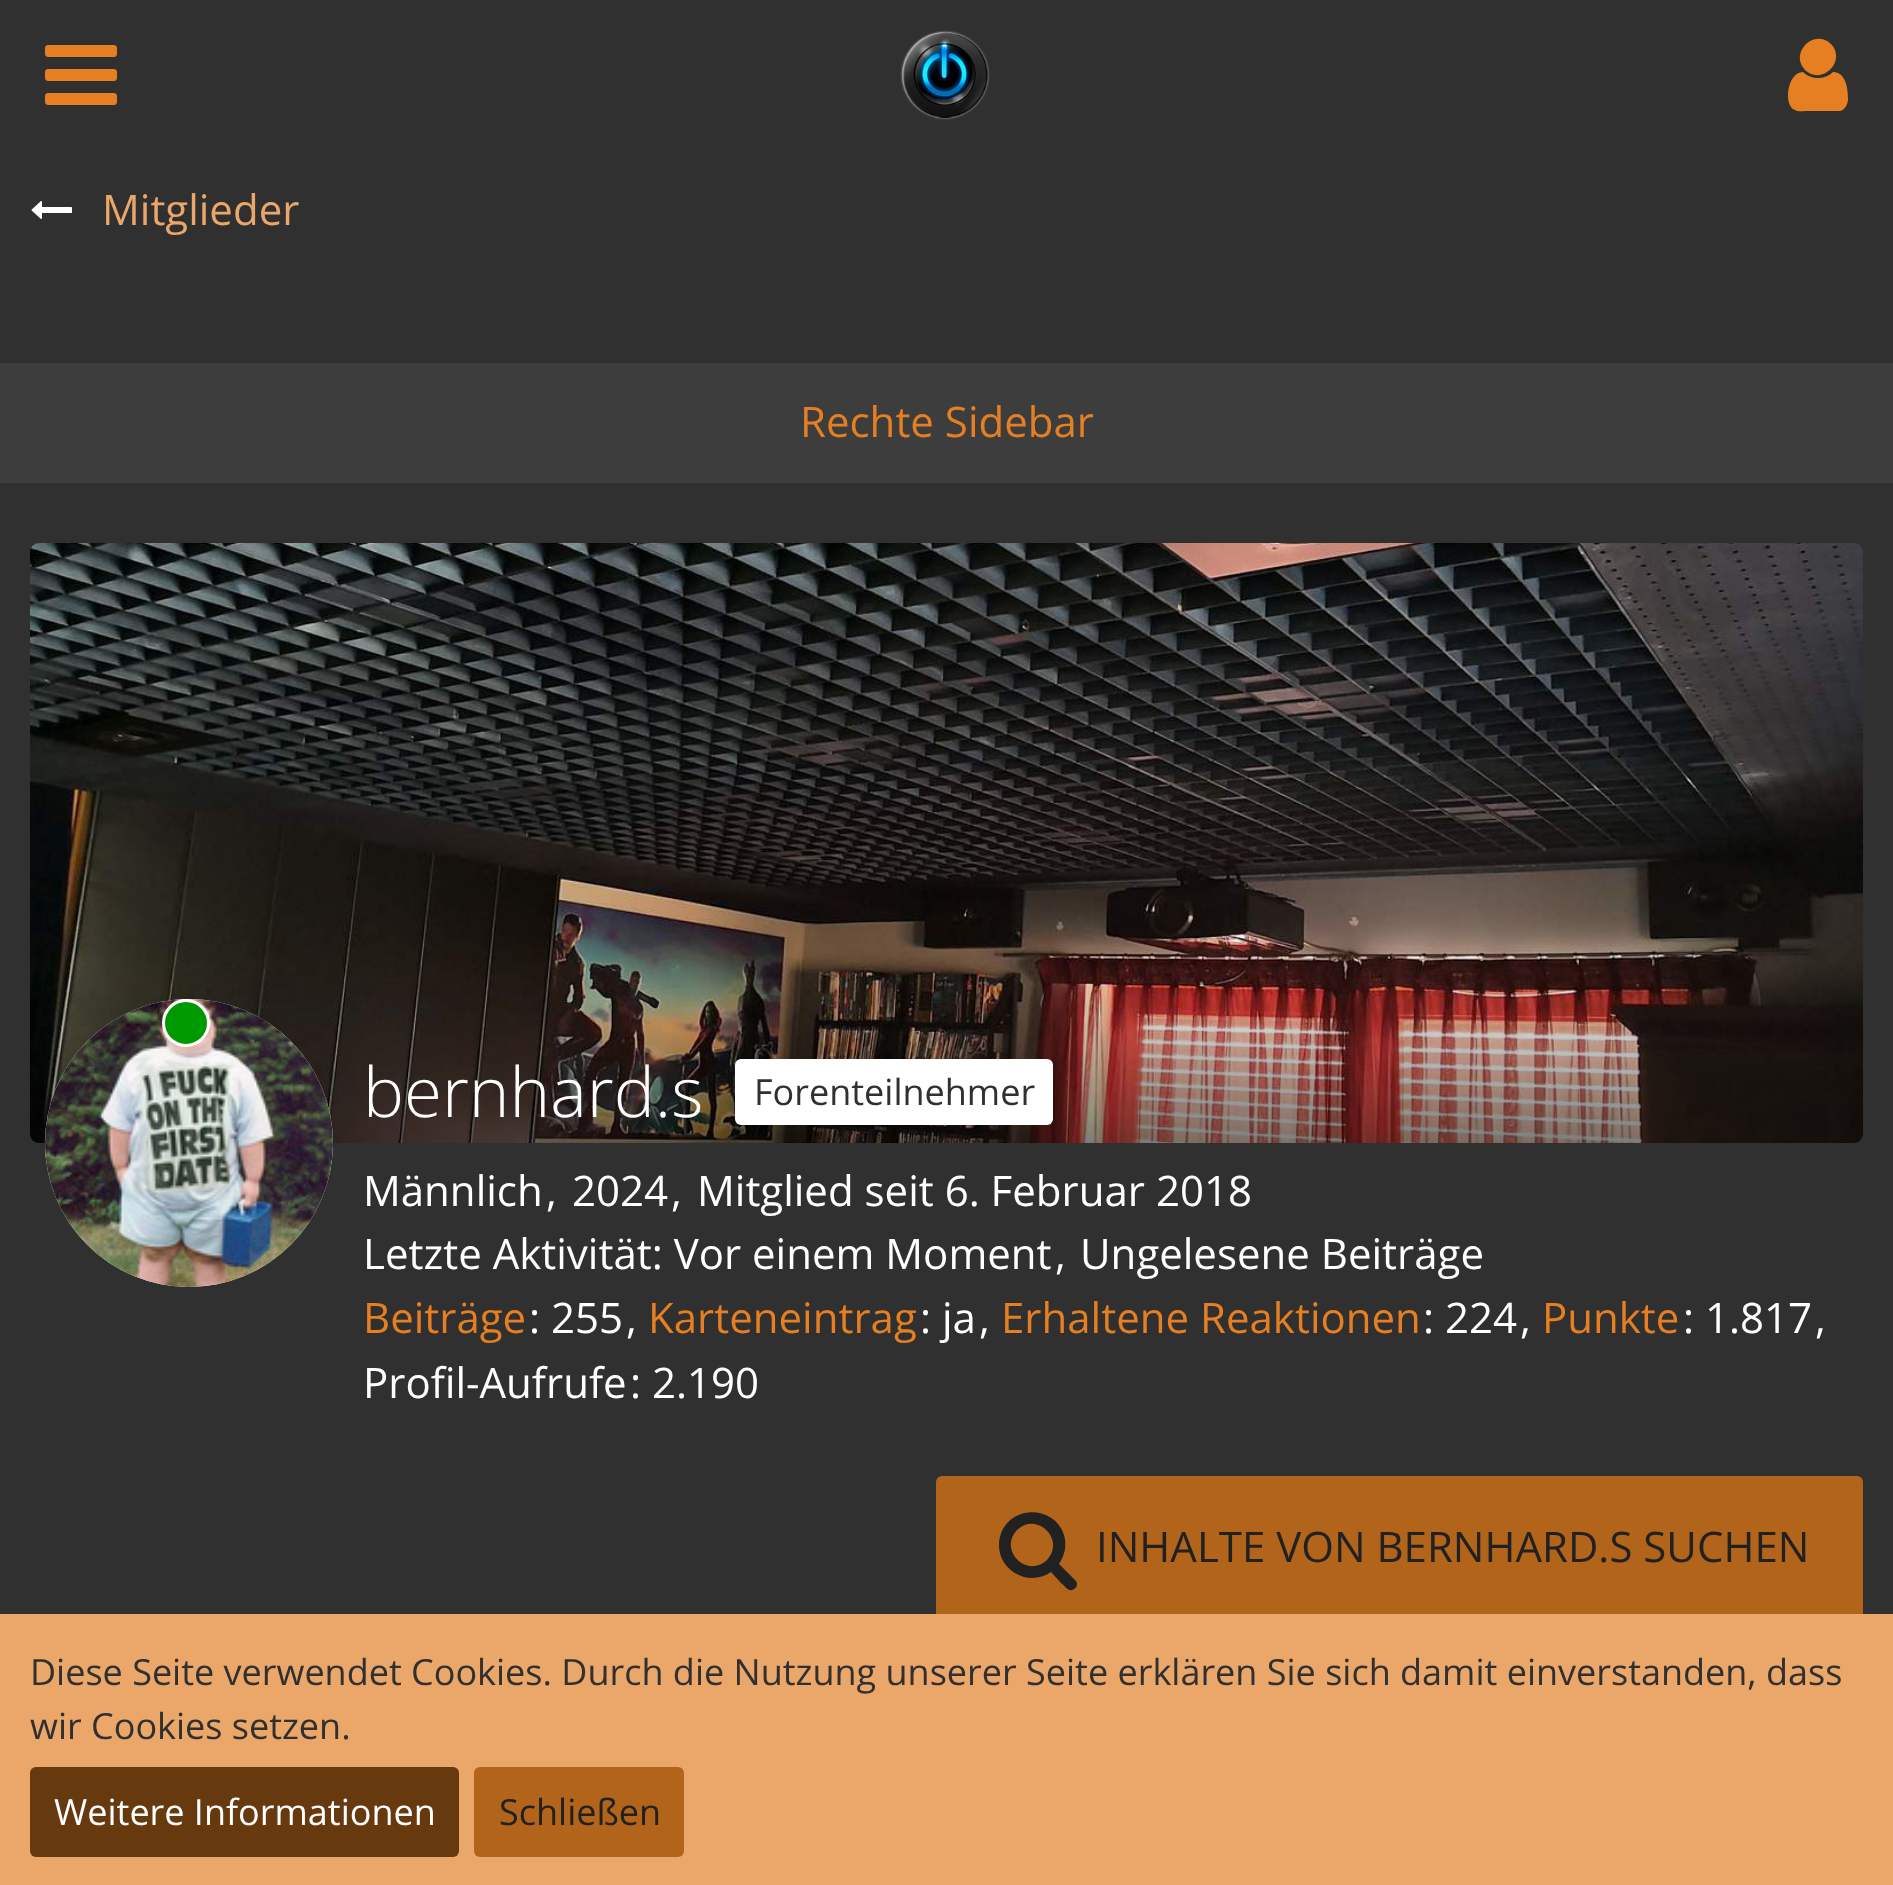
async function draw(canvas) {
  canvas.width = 1893
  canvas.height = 1885
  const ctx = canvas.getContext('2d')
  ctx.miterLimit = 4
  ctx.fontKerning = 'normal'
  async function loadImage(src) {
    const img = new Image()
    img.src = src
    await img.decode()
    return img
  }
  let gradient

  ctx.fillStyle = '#303030'
  ctx.fillRect(0, 0, 1893, 1885)
  ctx.drawImage(await loadImage('image0.png'), 900, 30, 90, 90)
  ctx.drawImage(await loadImage('image1.png'), 45, 45, 72, 60)
  ctx.fillStyle = '#e57f22'
  ctx.beginPath()
  ctx.moveTo(1848, 99)
  ctx.bezierCurveTo(1848, 104, 1845, 110, 1840, 111)
  ctx.lineTo(1805, 111)
  ctx.bezierCurveTo(1802, 111, 1798, 112, 1795, 110)
  ctx.bezierCurveTo(1783, 106, 1787, 72, 1803, 72)
  ctx.bezierCurveTo(1811, 80, 1825, 80, 1833, 72)
  ctx.bezierCurveTo(1846, 72, 1848, 89, 1848, 99)
  ctx.closePath()
  ctx.moveTo(1831, 44)
  ctx.bezierCurveTo(1847, 61, 1822, 86, 1805, 70)
  ctx.bezierCurveTo(1789, 53, 1814, 28, 1831, 44)
  ctx.closePath()
  ctx.fill()
  ctx.drawImage(await loadImage('image2.png'), 31, 201, 41, 18)
  ctx.font = '42px Open Sans'
  ctx.fillStyle = '#eaa769'
  ctx.fillText('Mitglieder', 102, 225)
  ctx.fillStyle = '#3d3d3d'
  ctx.fillRect(0, 363, 1893, 120)
  ctx.fillStyle = '#e57f22'
  ctx.fillText('Rechte Sidebar', 800, 437)
  ctx.drawImage(await loadImage('image3.png'), 30, 543, 1833, 600)
  gradient = ctx.createLinearGradient(947, 543, 947, 1143)
  gradient.addColorStop(0.7, '#00000000')
  gradient.addColorStop(1, '#00000080')
  ctx.fillStyle = gradient
  ctx.beginPath()
  ctx.roundRect(30, 543, 1833, 600, [0, 0, 9, 9])
  ctx.fill()
  ctx.fillStyle = '#fff'
  ctx.beginPath()
  ctx.arc(189, 1143, 144, 0, 2 * Math.PI)
  ctx.fill()
  ctx.drawImage(await loadImage('image4.png'), 45, 999, 288, 288)
  ctx.fillStyle = '#090'
  ctx.beginPath()
  ctx.arc(186, 1023, 22.5, 0, 2 * Math.PI)
  ctx.fill()
  ctx.strokeStyle = '#fff'
  ctx.lineWidth = 3
  ctx.stroke()
  ctx.font = '300 69px Open Sans'
  ctx.fillStyle = '#fff'
  ctx.fillText('bernhard.s', 363, 1117)
  ctx.beginPath()
  ctx.roundRect(735, 1059, 318, 66, 6)
  ctx.fill()
  ctx.font = '36px Open Sans'
  ctx.fillStyle = '#303030'
  ctx.fillText('Forenteilnehmer', 754, 1105)
  ctx.font = '42px Open Sans'
  ctx.fillStyle = '#fff'
  ctx.fillText('Männlich', 363, 1206)
  ctx.fillText(',', 546, 1206)
  ctx.fillText('2024', 572, 1206)
  ctx.fillText(',', 671, 1206)
  ctx.fillText('Mitglied seit 6. Februar 2018', 697, 1206)
  ctx.fillText('Letzte Aktivität: Vor einem Moment', 363, 1269)
  ctx.fillText(',', 1055, 1269)
  ctx.fillText('Ungelesene Beiträge', 1080, 1269)
  ctx.fillStyle = '#e57f22'
  ctx.fillText('Beiträge', 363, 1333)
  ctx.fillStyle = '#fff'
  ctx.fillText(': 255', 529, 1333)
  ctx.fillText(',', 626, 1333)
  ctx.fillStyle = '#e57f22'
  ctx.fillText('Karteneintrag', 648, 1333)
  ctx.fillStyle = '#fff'
  ctx.fillText(': ja', 920, 1333)
  ctx.fillText(',', 979, 1333)
  ctx.fillStyle = '#e57f22'
  ctx.fillText('Erhaltene Reaktionen', 1001, 1333)
  ctx.fillStyle = '#fff'
  ctx.fillText(': 224', 1423, 1333)
  ctx.fillText(',', 1520, 1333)
  ctx.fillStyle = '#e57f22'
  ctx.fillText('Punkte', 1542, 1333)
  ctx.fillStyle = '#fff'
  ctx.fillText(': 1.817', 1683, 1333)
  ctx.fillText(',', 1815, 1333)
  ctx.fillText('Profil-Aufrufe', 363, 1398)
  ctx.fillText(': 2.190', 630, 1398)
  ctx.fillStyle = '#b3641b'
  ctx.beginPath()
  ctx.roundRect(936, 1476, 927, 144, 6)
  ctx.fill()
  ctx.fillStyle = '#212121'
  ctx.beginPath()
  ctx.moveTo(1047, 1560)
  ctx.bezierCurveTo(1066, 1540, 1037, 1511, 1017, 1530)
  ctx.bezierCurveTo(998, 1550, 1027, 1579, 1047, 1560)
  ctx.closePath()
  ctx.moveTo(1077, 1584)
  ctx.bezierCurveTo(1077, 1586, 1076, 1588, 1074, 1589)
  ctx.bezierCurveTo(1069, 1593, 1065, 1586, 1061, 1583)
  ctx.lineTo(1051, 1572)
  ctx.bezierCurveTo(1034, 1584, 1011, 1577, 1002, 1559)
  ctx.bezierCurveTo(999, 1552, 998, 1544, 1000, 1537)
  ctx.bezierCurveTo(1008, 1505, 1054, 1504, 1064, 1535)
  ctx.bezierCurveTo(1067, 1545, 1065, 1555, 1059, 1564)
  ctx.lineTo(1075, 1580)
  ctx.bezierCurveTo(1076, 1581, 1077, 1582, 1077, 1584)
  ctx.closePath()
  ctx.fill()
  ctx.fillText('INHALTE VON BERNHARD.S SUCHEN', 1096, 1562)
  ctx.fillStyle = '#eaa769'
  ctx.fillRect(0, 1614, 1893, 271)
  ctx.font = '36px Open Sans'
  ctx.fillStyle = '#303030'
  ctx.fillText('Diese Seite verwendet Cookies. Durch die Nutzung unserer Seite erklären Sie sich damit einverstanden, dass', 30, 1685)
  ctx.fillText('wir Cookies setzen.', 30, 1739)
  ctx.fillStyle = '#66390f'
  ctx.beginPath()
  ctx.roundRect(30, 1767, 429, 90, 6)
  ctx.fill()
  ctx.fillStyle = '#fff'
  ctx.fillText('Weitere Informationen', 54, 1825)
  ctx.fillStyle = '#b3641b'
  ctx.beginPath()
  ctx.roundRect(474, 1767, 210, 90, 6)
  ctx.fill()
  ctx.fillStyle = '#212121'
  ctx.fillText('Schließen', 499, 1825)
}

draw(document.querySelector('canvas'))
